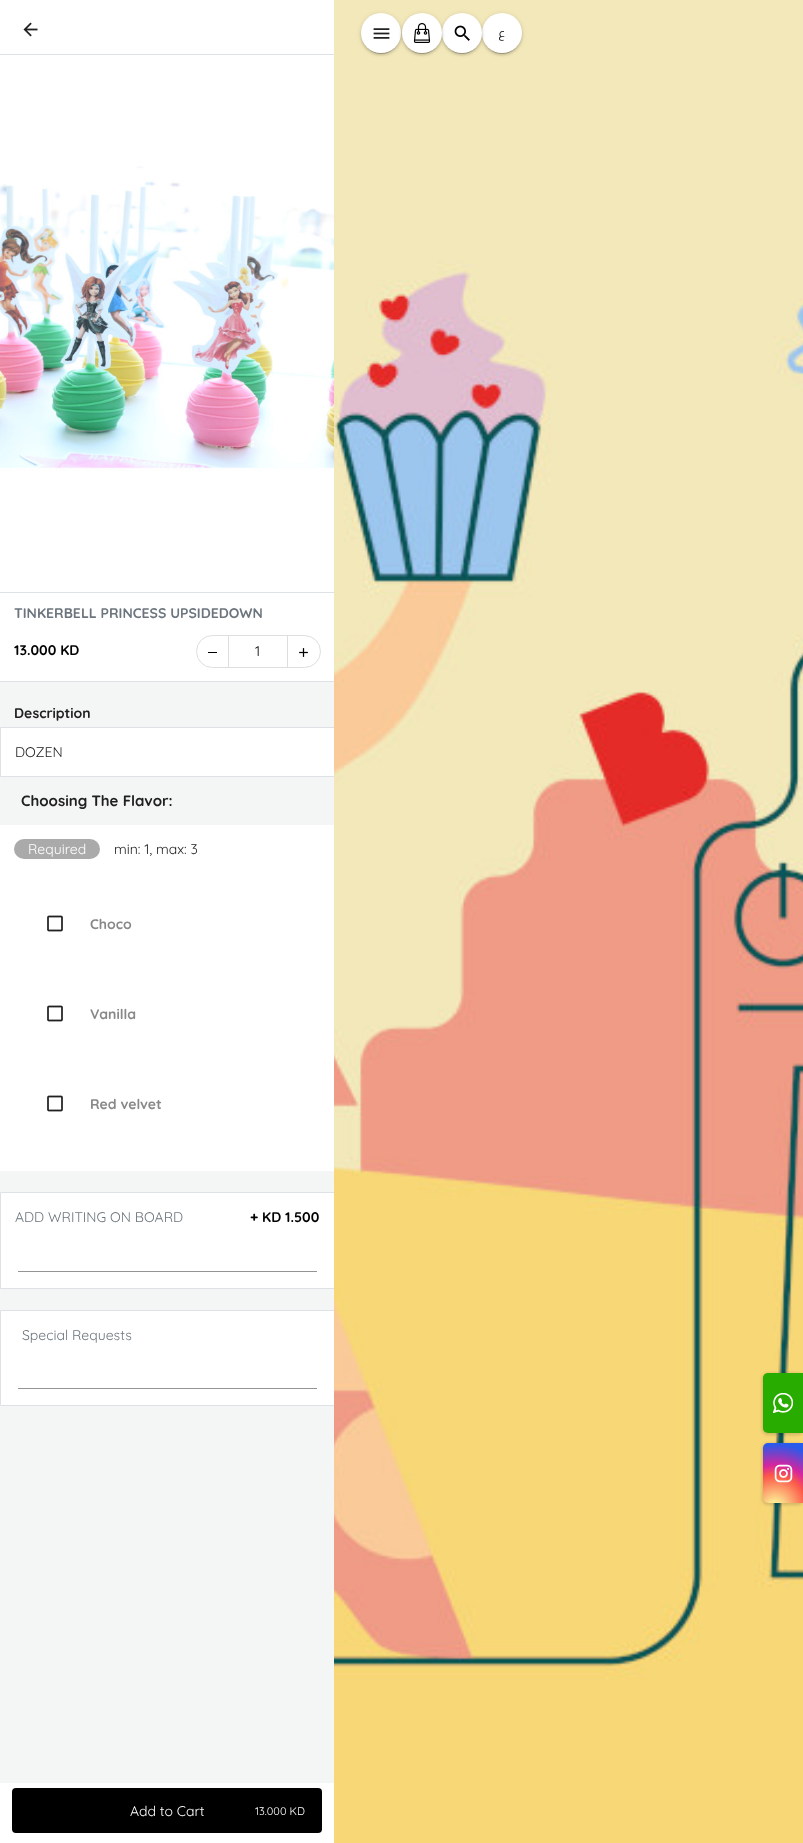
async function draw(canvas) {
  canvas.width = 803
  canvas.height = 1843
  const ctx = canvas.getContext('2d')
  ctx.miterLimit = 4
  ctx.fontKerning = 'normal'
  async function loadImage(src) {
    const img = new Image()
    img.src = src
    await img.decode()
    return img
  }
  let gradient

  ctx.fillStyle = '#f4f5f5'
  ctx.fillRect(0, 0, 803, 1843)
  ctx.fillStyle = '#dee2e6'
  ctx.fillRect(0, 592, 335, 1)
  ctx.fillRect(0, 681, 335, 1)
  ctx.fillStyle = '#fff'
  ctx.beginPath()
  ctx.rect(0.5, 727.5, 334, 49)
  ctx.fill()
  ctx.strokeStyle = '#dee2e6'
  ctx.stroke()
  ctx.beginPath()
  ctx.rect(0.5, 1192.5, 334, 96)
  ctx.fill()
  ctx.stroke()
  ctx.beginPath()
  ctx.rect(0.5, 1310.5, 334, 95)
  ctx.fill()
  ctx.stroke()
  ctx.drawImage(await loadImage('image0.png'), 334, 0, 469, 1843)
  ctx.fillStyle = '#0000001f'
  ctx.filter = 'blur(2.5px)'
  ctx.beginPath()
  ctx.roundRect(361, 14, 40, 40, 20)
  ctx.fill()
  ctx.filter = 'none'
  ctx.fillStyle = '#00000024'
  ctx.filter = 'blur(1px)'
  ctx.beginPath()
  ctx.roundRect(361, 15, 40, 40, 20)
  ctx.fill()
  ctx.filter = 'none'
  ctx.fillStyle = '#00000033'
  ctx.filter = 'blur(0.5px)'
  ctx.beginPath()
  ctx.roundRect(363, 18, 36, 36, 18)
  ctx.fill()
  ctx.filter = 'none'
  ctx.fillStyle = '#fff'
  ctx.beginPath()
  ctx.arc(381, 33, 20, 0, 2 * Math.PI)
  ctx.fill()
  ctx.drawImage(await loadImage('image1.png'), 373, 28, 17, 11)
  ctx.fillStyle = '#0000001f'
  ctx.filter = 'blur(2.5px)'
  ctx.beginPath()
  ctx.roundRect(482, 14, 40, 40, 20)
  ctx.fill()
  ctx.filter = 'none'
  ctx.fillStyle = '#00000024'
  ctx.filter = 'blur(1px)'
  ctx.beginPath()
  ctx.roundRect(482, 15, 40, 40, 20)
  ctx.fill()
  ctx.filter = 'none'
  ctx.fillStyle = '#00000033'
  ctx.filter = 'blur(0.5px)'
  ctx.beginPath()
  ctx.roundRect(484, 18, 36, 36, 18)
  ctx.fill()
  ctx.filter = 'none'
  ctx.fillStyle = '#fff'
  ctx.beginPath()
  ctx.arc(502, 33, 20, 0, 2 * Math.PI)
  ctx.fill()
  ctx.fillStyle = '#0000001f'
  ctx.filter = 'blur(2.5px)'
  ctx.beginPath()
  ctx.roundRect(442, 14, 40, 40, 20)
  ctx.fill()
  ctx.filter = 'none'
  ctx.fillStyle = '#00000024'
  ctx.filter = 'blur(1px)'
  ctx.beginPath()
  ctx.roundRect(442, 15, 40, 40, 20)
  ctx.fill()
  ctx.filter = 'none'
  ctx.fillStyle = '#00000033'
  ctx.filter = 'blur(0.5px)'
  ctx.beginPath()
  ctx.roundRect(444, 18, 36, 36, 18)
  ctx.fill()
  ctx.filter = 'none'
  ctx.fillStyle = '#fff'
  ctx.beginPath()
  ctx.arc(462, 33, 20, 0, 2 * Math.PI)
  ctx.fill()
  ctx.fillStyle = '#0000001f'
  ctx.filter = 'blur(2.5px)'
  ctx.beginPath()
  ctx.roundRect(402, 14, 40, 40, 20)
  ctx.fill()
  ctx.filter = 'none'
  ctx.fillStyle = '#00000024'
  ctx.filter = 'blur(1px)'
  ctx.beginPath()
  ctx.roundRect(402, 15, 40, 40, 20)
  ctx.fill()
  ctx.filter = 'none'
  ctx.fillStyle = '#00000033'
  ctx.filter = 'blur(0.5px)'
  ctx.beginPath()
  ctx.roundRect(404, 18, 36, 36, 18)
  ctx.fill()
  ctx.filter = 'none'
  ctx.fillStyle = '#fff'
  ctx.beginPath()
  ctx.arc(422, 33, 20, 0, 2 * Math.PI)
  ctx.fill()
  ctx.drawImage(await loadImage('image2.png'), 413, 23, 18, 20)
  ctx.drawImage(await loadImage('image3.png'), 454, 25, 16, 16)
  ctx.direction = 'rtl'
  ctx.font = '12px Cairo'
  ctx.fillStyle = '#202020'
  ctx.fillText('ع', 505, 37)
  ctx.fillStyle = '#fff'
  ctx.fillRect(0, 0, 334, 54)
  ctx.fillStyle = '#dee2e6'
  ctx.fillRect(0, 54, 334, 1)
  ctx.drawImage(await loadImage('image4.png'), 23, 22, 15, 15)
  ctx.fillStyle = '#fff'
  ctx.fillRect(0, 55, 334, 537)
  ctx.drawImage(await loadImage('image5.png'), 0, 166, 334, 305)
  ctx.fillRect(0, 593, 334, 88)
  ctx.direction = 'ltr'
  ctx.font = '300 14px "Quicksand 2"'
  ctx.fillStyle = '#6c757d'
  ctx.fillText('TINKERBELL PRINCESS UPSIDEDOWN', 14, 618)
  ctx.fillStyle = '#000'
  ctx.fillText('13.000 KD', 14, 655)
  ctx.beginPath()
  ctx.roundRect(196.5, 635.5, 124, 32, 16)
  ctx.strokeStyle = '#dedede'
  ctx.stroke()
  ctx.fillRect(208, 652, 9, 1)
  ctx.fillStyle = '#dedede'
  ctx.fillRect(287, 635, 1, 32)
  ctx.fillRect(228, 635, 1, 32)
  ctx.font = '300 14px Quicksand'
  ctx.fillStyle = '#000'
  ctx.fillText('1', 255, 656)
  ctx.drawImage(await loadImage('image6.png'), 299, 648, 9, 9)
  ctx.font = '300 14px "Quicksand 2"'
  ctx.fillStyle = '#202020'
  ctx.fillText('Description', 14, 718)
  ctx.font = '300 14px Quicksand'
  ctx.fillText('DOZEN', 15, 757)
  ctx.font = '300 15px "Quicksand 2"'
  ctx.fillText('Choosing The Flavor:', 21, 806)
  ctx.fillStyle = '#fff'
  ctx.fillRect(0, 825, 334, 346)
  ctx.fillStyle = '#aaa'
  ctx.beginPath()
  ctx.roundRect(14, 839, 86, 20, 10)
  ctx.fill()
  ctx.font = '300 14px Quicksand'
  ctx.fillStyle = '#fff'
  ctx.fillText('Required', 28, 854)
  ctx.fillStyle = '#202020'
  ctx.fillText('min: 1, max: 3', 114, 854)
  ctx.drawImage(await loadImage('image7.png'), 47, 915, 16, 17)
  ctx.font = '300 14px "Quicksand 2"'
  ctx.fillStyle = '#888'
  ctx.fillText('Choco', 90, 929)
  ctx.drawImage(await loadImage('image7.png'), 47, 1005, 16, 17)
  ctx.fillText('Vanilla', 90, 1019)
  ctx.drawImage(await loadImage('image7.png'), 47, 1095, 16, 17)
  ctx.fillText('Red velvet', 90, 1109)
  ctx.font = '300 14px Quicksand'
  ctx.fillStyle = '#6c757d'
  ctx.fillText('ADD WRITING ON BOARD', 15, 1222)
  ctx.font = '300 14px "Quicksand 2"'
  ctx.fillStyle = '#000'
  ctx.fillText('+ KD 1.500', 250, 1222)
  ctx.fillStyle = '#949494'
  ctx.fillRect(18, 1271, 299, 1)
  ctx.font = '300 14px Quicksand'
  ctx.fillStyle = '#6c757d'
  ctx.fillText('Special Requests', 22, 1340)
  ctx.fillStyle = '#949494'
  ctx.fillRect(18, 1388, 299, 1)
  ctx.fillStyle = '#fff'
  ctx.fillRect(0, 1783, 334, 60)
  ctx.fillStyle = '#000'
  ctx.beginPath()
  ctx.roundRect(12, 1788, 310, 45, 4)
  ctx.fill()
  ctx.fillStyle = '#fff'
  ctx.fillText('Add to Cart', 130, 1816)
  ctx.font = '300 11px Quicksand'
  ctx.fillText('13.000 KD', 255, 1815)
  ctx.fillStyle = '#00000026'
  ctx.filter = 'blur(1.5px)'
  ctx.beginPath()
  ctx.roundRect(762, 1373, 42, 62, 6)
  ctx.fill()
  ctx.filter = 'none'
  ctx.fillStyle = '#29ac00'
  ctx.beginPath()
  ctx.roundRect(763, 1373, 40, 60, [5, 0, 0, 5])
  ctx.fill()
  ctx.drawImage(await loadImage('image8.png'), 763, 1374, 31, 58)
  ctx.fillStyle = '#00000026'
  ctx.filter = 'blur(1.5px)'
  ctx.beginPath()
  ctx.roundRect(762, 1443, 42, 62, 6)
  ctx.fill()
  ctx.filter = 'none'
  gradient = ctx.createRadialGradient(775, 1507, 0, 775, 1507, 70)
  gradient.addColorStop(0, '#fdf497')
  gradient.addColorStop(0.05, '#fdf497')
  gradient.addColorStop(0.45, '#fd5949')
  gradient.addColorStop(0.6, '#d6249f')
  gradient.addColorStop(0.9, '#285aeb')
  ctx.fillStyle = gradient
  ctx.beginPath()
  ctx.roundRect(763, 1443, 40, 60, [5, 0, 0, 5])
  ctx.fill()
  ctx.drawImage(await loadImage('image9.png'), 774, 1464, 19, 19)
}

draw(document.querySelector('canvas'))
